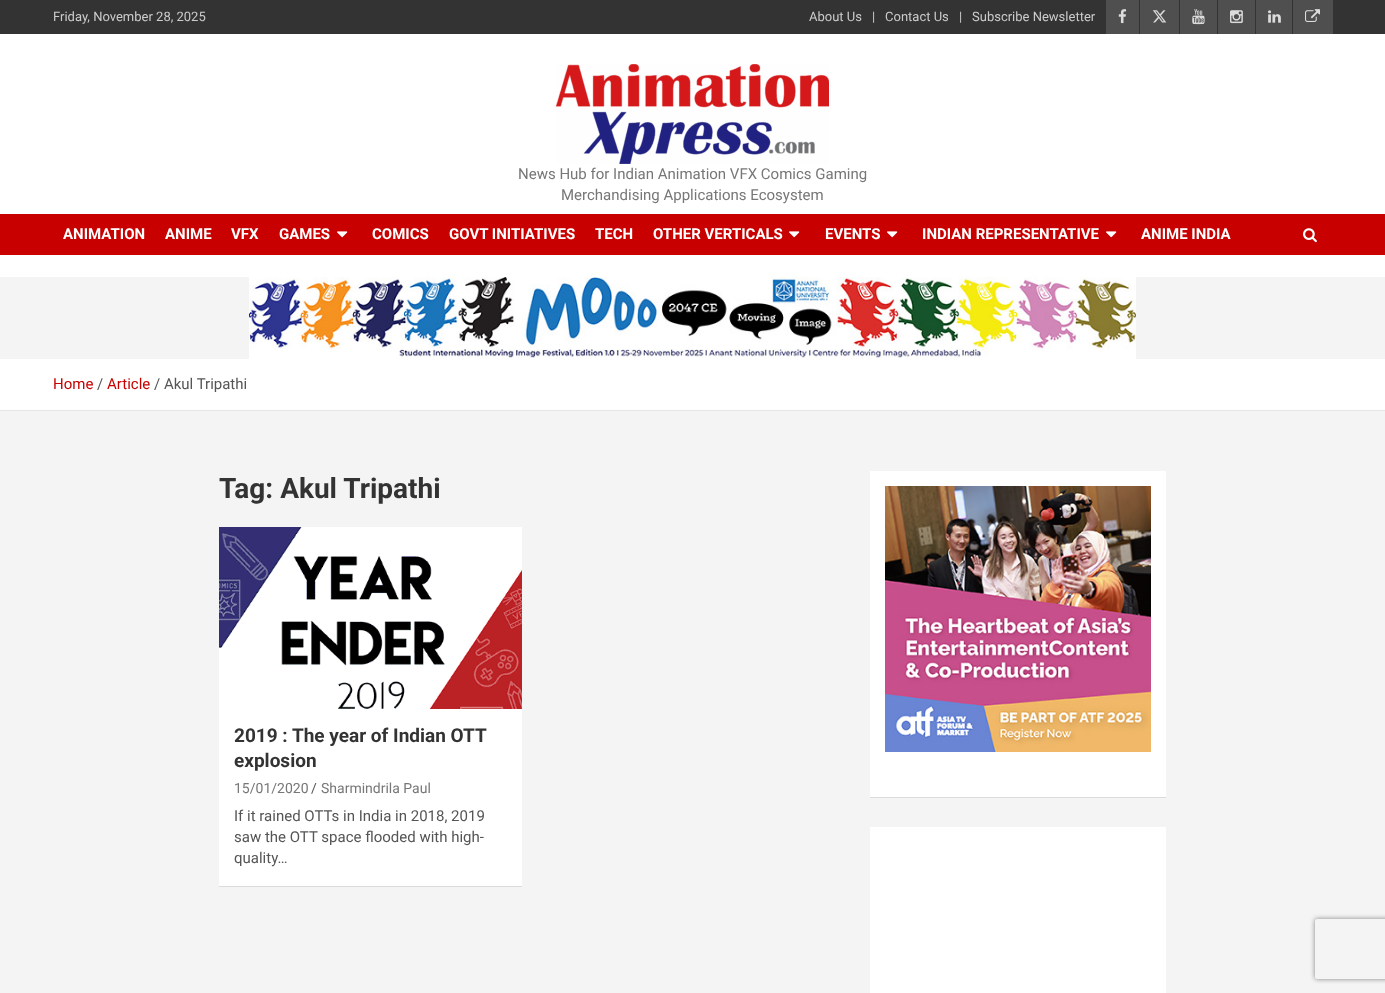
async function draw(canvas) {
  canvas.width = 1385
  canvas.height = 993
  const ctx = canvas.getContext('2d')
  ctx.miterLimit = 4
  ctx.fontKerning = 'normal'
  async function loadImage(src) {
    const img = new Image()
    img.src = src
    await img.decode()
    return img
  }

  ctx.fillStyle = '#f4f4f4'
  ctx.fillRect(0, 0, 1385, 993)
  ctx.fillStyle = '#333'
  ctx.fillRect(0, 0, 1385, 34)
  ctx.font = '13px Roboto'
  ctx.fillStyle = '#ccc'
  ctx.fillText('Friday, November 28, 2025', 53, 21)
  ctx.fillText('About Us', 809, 21)
  ctx.fillText('|', 872, 21)
  ctx.fillText('Contact Us', 885, 21)
  ctx.fillText('|', 959, 21)
  ctx.fillText('Subscribe Newsletter', 972, 21)
  ctx.fillStyle = '#4f4f4f'
  ctx.fillRect(1106, 0, 33, 34)
  ctx.drawImage(await loadImage('image0.png'), 1118, 9, 9, 15)
  ctx.fillRect(1140, 0, 39, 34)
  ctx.drawImage(await loadImage('image1.png'), 1152, 10, 15, 13)
  ctx.fillRect(1180, 0, 37, 34)
  ctx.drawImage(await loadImage('image2.png'), 1192, 9, 13, 16)
  ctx.fillRect(1218, 0, 37, 34)
  ctx.drawImage(await loadImage('image3.png'), 1230, 10, 13, 14)
  ctx.fillRect(1256, 0, 36, 34)
  ctx.drawImage(await loadImage('image4.png'), 1268, 10, 13, 13)
  ctx.fillRect(1293, 0, 40, 34)
  ctx.drawImage(await loadImage('image5.png'), 1305, 9, 15, 13)
  ctx.fillStyle = '#fff'
  ctx.fillRect(0, 34, 1385, 243)
  ctx.drawImage(await loadImage('image6.png'), 556, 64, 273, 100)
  ctx.font = '15px Roboto'
  ctx.fillStyle = '#777'
  ctx.fillText('News Hub for Indian Animation VFX Comics Gaming', 518, 179)
  ctx.fillText('Merchandising Applications Ecosystem', 561, 200)
  ctx.fillStyle = '#c80000'
  ctx.fillRect(0, 214, 1385, 41)
  ctx.font = 'bold 15px Roboto'
  ctx.fillStyle = '#fff'
  ctx.fillText('ANIMATION', 63, 239)
  ctx.fillText('ANIME', 165, 239)
  ctx.fillText('VFX', 231, 239)
  ctx.fillText('GAMES', 279, 239)
  ctx.drawImage(await loadImage('image7.png'), 337, 231, 11, 7)
  ctx.fillText('COMICS', 372, 239)
  ctx.fillText('GOVT INITIATIVES', 449, 239)
  ctx.fillText('TECH', 595, 239)
  ctx.fillText('OTHER VERTICALS', 653, 239)
  ctx.drawImage(await loadImage('image7.png'), 789, 231, 11, 7)
  ctx.fillText('EVENTS', 825, 239)
  ctx.drawImage(await loadImage('image7.png'), 887, 231, 11, 7)
  ctx.fillText('INDIAN REPRESENTATIVE', 922, 239)
  ctx.drawImage(await loadImage('image7.png'), 1106, 231, 11, 7)
  ctx.fillText('ANIME INDIA', 1141, 239)
  ctx.drawImage(await loadImage('image8.png'), 1303, 228, 14, 15)
  ctx.drawImage(await loadImage('image9.png'), 249, 277, 887, 82)
  ctx.fillRect(0, 359, 1385, 51)
  ctx.fillStyle = '#e6e6e6'
  ctx.fillRect(0, 410, 1385, 1)
  ctx.font = '15px Roboto'
  ctx.fillStyle = '#c80000'
  ctx.fillText('Home', 53, 389)
  ctx.fillStyle = '#555'
  ctx.fillText('/', 97, 389)
  ctx.fillStyle = '#c80000'
  ctx.fillText('Article', 107, 389)
  ctx.fillStyle = '#555'
  ctx.fillText('/ Akul Tripathi', 154, 389)
  ctx.font = 'bold 28px Roboto'
  ctx.fillStyle = '#333'
  ctx.fillText('Tag: Akul Tripathi', 219, 498)
  ctx.fillStyle = '#0000001a'
  ctx.filter = 'blur(0.5px)'
  ctx.beginPath()
  ctx.rect(219, 528, 303, 359)
  ctx.fill()
  ctx.filter = 'none'
  ctx.fillStyle = '#fff'
  ctx.fillRect(219, 709, 303, 177)
  ctx.drawImage(await loadImage('image10.png'), 219, 527, 303, 182)
  ctx.font = 'bold 19px Roboto'
  ctx.fillStyle = '#333'
  ctx.fillText('2019 : The year of Indian OTT', 234, 742)
  ctx.fillText('explosion', 234, 767)
  ctx.font = '14px Roboto'
  ctx.fillStyle = '#777'
  ctx.fillText('15/01/2020', 234, 793)
  ctx.fillStyle = '#555'
  ctx.fillText('/', 311, 793)
  ctx.fillStyle = '#777'
  ctx.fillText('Sharmindrila Paul', 321, 793)
  ctx.font = '15px Roboto'
  ctx.fillStyle = '#555'
  ctx.fillText('If it rained OTTs in India in 2018, 2019', 234, 821)
  ctx.fillText('saw the OTT space flooded with high-', 234, 842)
  ctx.fillText('quality…', 234, 863)
  ctx.fillStyle = '#0000001a'
  ctx.filter = 'blur(0.5px)'
  ctx.beginPath()
  ctx.rect(870, 472, 296, 326)
  ctx.fill()
  ctx.filter = 'none'
  ctx.fillStyle = '#fff'
  ctx.fillRect(870, 471, 296, 326)
  ctx.drawImage(await loadImage('image11.png'), 885, 486, 266, 266)
  ctx.fillRect(870, 827, 296, 166)
  ctx.save()
  ctx.beginPath()
  ctx.moveTo(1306, 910)
  ctx.lineTo(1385, 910)
  ctx.lineTo(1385, 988)
  ctx.lineTo(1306, 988)
  ctx.closePath()
  ctx.moveTo(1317, 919)
  ctx.lineTo(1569, 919)
  ctx.bezierCurveTo(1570, 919, 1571, 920, 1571, 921)
  ctx.lineTo(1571, 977)
  ctx.bezierCurveTo(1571, 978, 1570, 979, 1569, 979)
  ctx.lineTo(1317, 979)
  ctx.bezierCurveTo(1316, 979, 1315, 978, 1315, 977)
  ctx.lineTo(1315, 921)
  ctx.bezierCurveTo(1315, 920, 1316, 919, 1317, 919)
  ctx.closePath()
  ctx.clip('evenodd')
  ctx.fillStyle = '#808080'
  ctx.filter = 'blur(2.5px)'
  ctx.beginPath()
  ctx.roundRect(1315, 919, 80, 60, 2)
  ctx.fill()
  ctx.filter = 'none'
  ctx.restore()
}

draw(document.querySelector('canvas'))
